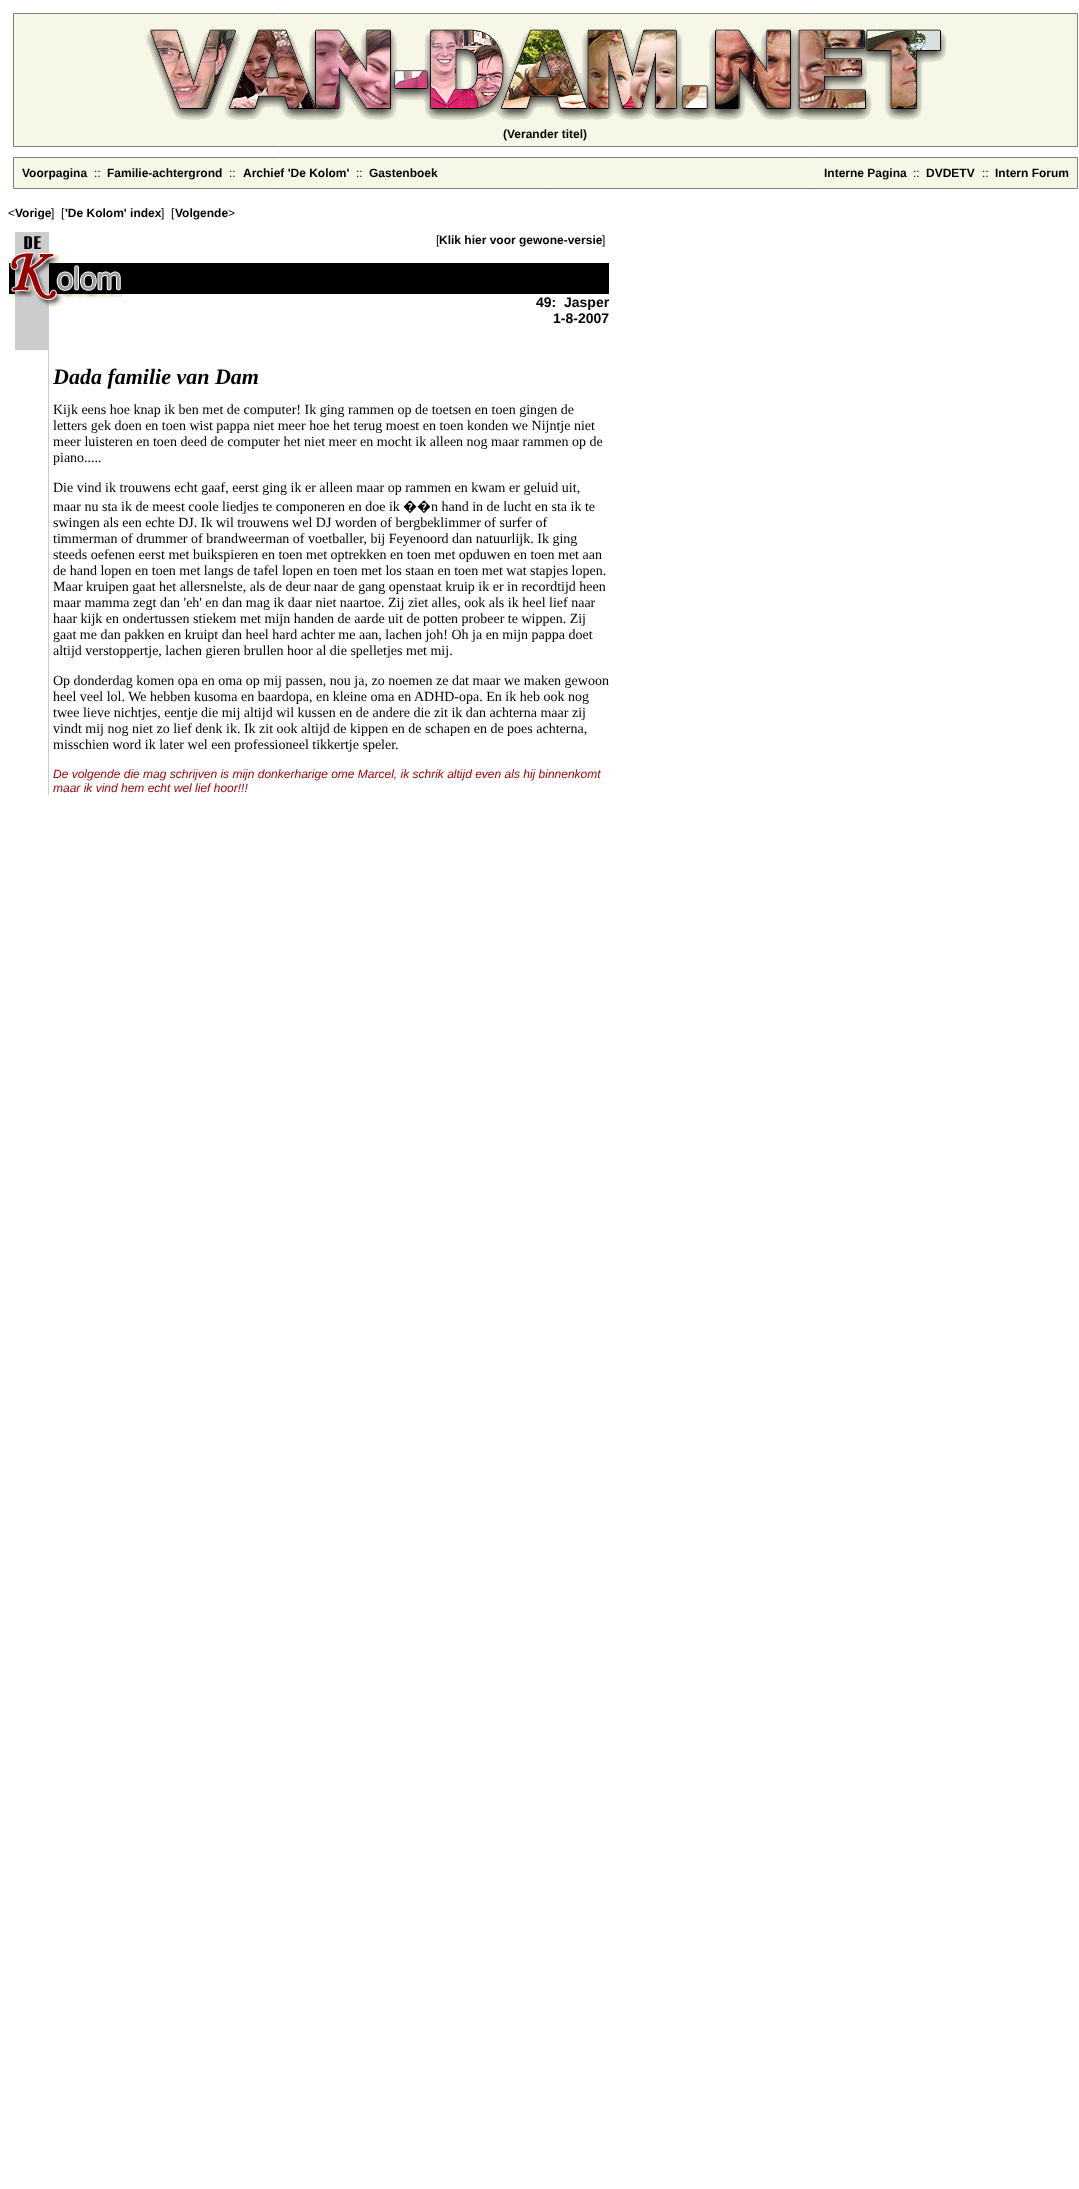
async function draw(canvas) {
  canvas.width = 1079
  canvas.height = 2189
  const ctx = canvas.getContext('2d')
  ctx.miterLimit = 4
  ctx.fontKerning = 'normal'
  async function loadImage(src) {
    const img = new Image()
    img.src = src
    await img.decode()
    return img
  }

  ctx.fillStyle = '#fff'
  ctx.fillRect(0, 0, 1079, 2189)
  ctx.fillStyle = '#f7f7e7'
  ctx.beginPath()
  ctx.rect(13.5, 13.5, 1064, 133)
  ctx.fill()
  ctx.strokeStyle = '#808080'
  ctx.stroke()
  ctx.drawImage(await loadImage('image0.png'), 146, 29, 800, 91)
  ctx.font = 'bold 12px Liberation Sans'
  ctx.fillStyle = '#000'
  ctx.fillText('(Verander titel)', 503, 138)
  ctx.fillStyle = '#f7f7e7'
  ctx.beginPath()
  ctx.rect(13.5, 157.5, 1064, 31)
  ctx.fill()
  ctx.stroke()
  ctx.fillStyle = '#000'
  ctx.fillText('Voorpagina', 22, 177)
  ctx.font = '12px Liberation Sans'
  ctx.fillText('::', 94, 177)
  ctx.font = 'bold 12px Liberation Sans'
  ctx.fillText('Familie-achtergrond', 107, 177)
  ctx.font = '12px Liberation Sans'
  ctx.fillText('::', 229, 177)
  ctx.font = 'bold 12px Liberation Sans'
  ctx.fillText('Archief \'De Kolom\'', 243, 177)
  ctx.font = '12px Liberation Sans'
  ctx.fillText('::', 356, 177)
  ctx.font = 'bold 12px Liberation Sans'
  ctx.fillText('Gastenboek', 369, 177)
  ctx.fillText('Interne Pagina', 824, 177)
  ctx.font = '12px Liberation Sans'
  ctx.fillText('::', 913, 177)
  ctx.font = 'bold 12px Liberation Sans'
  ctx.fillText('DVDETV', 926, 177)
  ctx.font = '12px Liberation Sans'
  ctx.fillText('::', 982, 177)
  ctx.font = 'bold 12px Liberation Sans'
  ctx.fillText('Intern Forum', 995, 177)
  ctx.font = '12px Liberation Sans'
  ctx.fillText('<', 8, 217)
  ctx.font = 'bold 12px Liberation Sans'
  ctx.fillText('Vorige', 15, 217)
  ctx.font = '12px Liberation Sans'
  ctx.fillText(']  [', 51, 217)
  ctx.font = 'bold 12px Liberation Sans'
  ctx.fillText('\'De Kolom\' index', 65, 217)
  ctx.font = '12px Liberation Sans'
  ctx.fillText(']  [', 161, 217)
  ctx.font = 'bold 12px Liberation Sans'
  ctx.fillText('Volgende', 175, 217)
  ctx.font = '12px Liberation Sans'
  ctx.fillText('>', 228, 217)
  ctx.drawImage(await loadImage('image1.png'), 9, 232, 113, 118)
  ctx.fillText('[', 436, 244)
  ctx.font = 'bold 12px Liberation Sans'
  ctx.fillText('Klik hier voor gewone-versie', 439, 244)
  ctx.font = '12px Liberation Sans'
  ctx.fillText(']', 602, 244)
  ctx.fillRect(122, 263, 487, 31)
  ctx.font = 'bold 14px Liberation Sans'
  ctx.fillText('49:  Jasper', 536, 307)
  ctx.fillText('1-8-2007', 553, 323)
  ctx.fillStyle = '#ccc'
  ctx.fillRect(48, 350, 1, 445)
  ctx.font = 'italic bold 22px Liberation Serif'
  ctx.fillStyle = '#000'
  ctx.fillText('Dada familie van Dam', 53, 384)
  ctx.font = '14px Liberation Serif'
  ctx.fillText('Kijk eens hoe knap ik ben met de computer! Ik ging rammen op de toetsen en toen gingen de', 53, 414)
  ctx.fillText('letters gek doen en toen wist pappa niet meer hoe het terug moest en toen konden we Nijntje niet', 53, 430)
  ctx.fillText('meer luisteren en toen deed de computer het niet meer en mocht ik alleen nog maar rammen op de', 53, 446)
  ctx.fillText('piano.....', 53, 462)
  ctx.fillText('Die vind ik trouwens echt gaaf, eerst ging ik er alleen maar op rammen en kwam er geluid uit,', 53, 492)
  ctx.fillText('maar nu sta ik de meest coole liedjes te componeren en doe ik', 53, 511)
  ctx.font = '14px Noto Sans'
  ctx.fillText('��', 403, 511)
  ctx.font = '14px Liberation Serif'
  ctx.fillText('n hand in de lucht en sta ik te', 431, 511)
  ctx.fillText('swingen als een echte DJ. Ik wil trouwens wel DJ worden of bergbeklimmer of surfer of', 53, 527)
  ctx.fillText('timmerman of drummer of brandweerman of voetballer, bij Feyenoord dan natuurlijk. Ik ging', 53, 543)
  ctx.fillText('steeds oefenen eerst met buikspieren en toen met optrekken en toen met opduwen en toen met aan', 53, 559)
  ctx.fillText('de hand lopen en toen met langs de tafel lopen en toen met los staan en toen met wat stapjes lopen.', 53, 575)
  ctx.fillText('Maar kruipen gaat het allersnelste, als de deur naar de gang openstaat kruip ik er in recordtijd heen', 53, 591)
  ctx.fillText('maar mamma zegt dan \'eh\' en dan mag ik daar niet naartoe. Zij ziet alles, ook als ik heel lief naar', 53, 607)
  ctx.fillText('haar kijk en ondertussen stiekem met mijn handen de aarde uit de potten probeer te wippen. Zij', 53, 623)
  ctx.fillText('gaat me dan pakken en kruipt dan heel hard achter me aan, lachen joh! Oh ja en mijn pappa doet', 53, 639)
  ctx.fillText('altijd verstoppertje, lachen gieren brullen hoor al die spelletjes met mij.', 53, 655)
  ctx.fillText('Op donderdag komen opa en oma op mij passen, nou ja, zo noemen ze dat maar we maken gewoon', 53, 685)
  ctx.fillText('heel veel lol. We hebben kusoma en baardopa, en kleine oma en ADHD-opa. En ik heb ook nog', 53, 701)
  ctx.fillText('twee lieve nichtjes, eentje die mij altijd wil kussen en de andere die zit ik dan achterna maar zij', 53, 717)
  ctx.fillText('vindt mij nog niet zo lief denk ik. Ik zit ook altijd de kippen en de schapen en de poes achterna,', 53, 733)
  ctx.fillText('misschien word ik later wel een professioneel tikkertje speler.', 53, 749)
  ctx.font = 'italic 12px Liberation Sans'
  ctx.fillStyle = '#900'
  ctx.fillText('De volgende die mag schrijven is mijn donkerharige ome Marcel, ik schrik altijd even als hij binnenkomt', 53, 778)
  ctx.fillText('maar ik vind hem echt wel lief hoor!!!', 53, 792)
}

draw(document.querySelector('canvas'))
